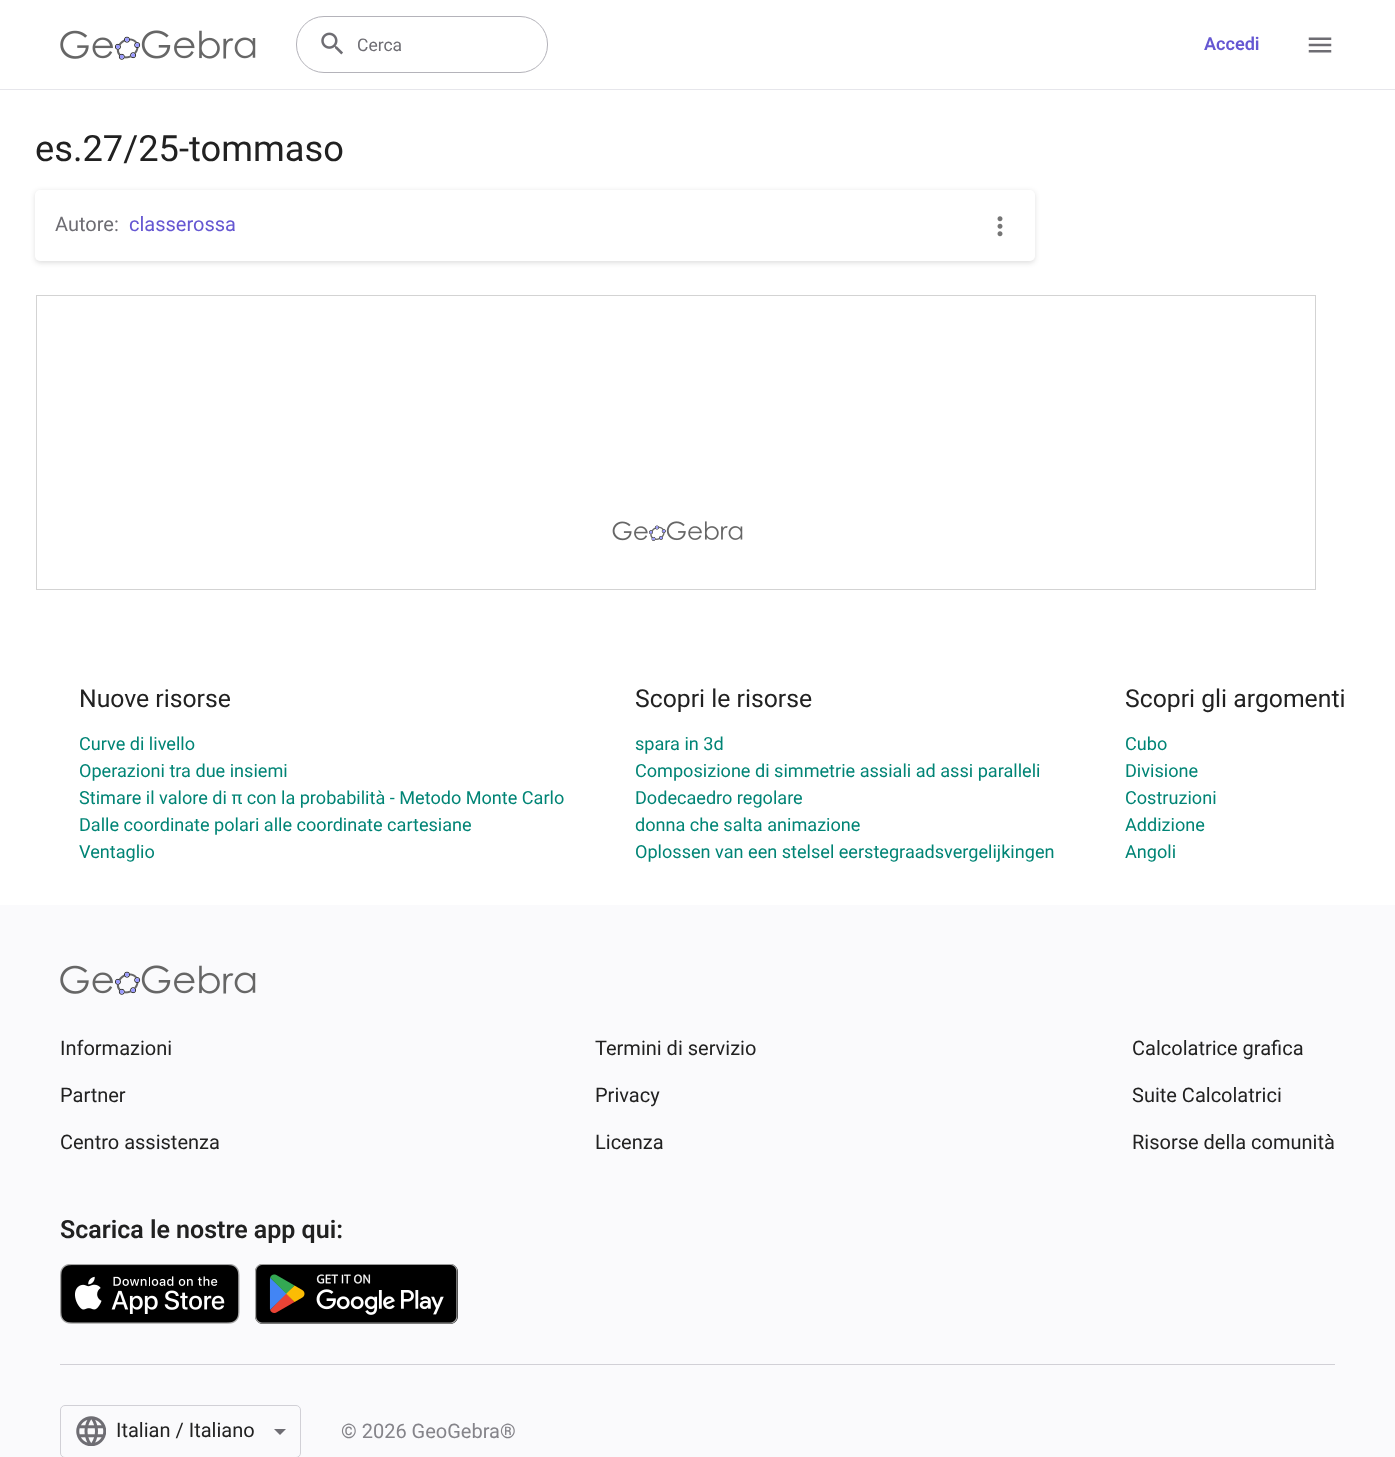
async function draw(canvas) {
  canvas.width = 1395
  canvas.height = 1457
  const ctx = canvas.getContext('2d')
  ctx.miterLimit = 4
  ctx.fontKerning = 'normal'
  async function loadImage(src) {
    const img = new Image()
    img.src = src
    await img.decode()
    return img
  }

  ctx.fillStyle = '#fff'
  ctx.fillRect(0, 0, 1395, 1457)
  ctx.fillStyle = '#e6e6eb'
  ctx.fillRect(0, 89, 1395, 1)
  ctx.drawImage(await loadImage('image0.png'), 60, 30, 196, 30)
  ctx.beginPath()
  ctx.roundRect(296.5, 16.5, 251, 56, 27.5)
  ctx.strokeStyle = '#b4b3ba'
  ctx.stroke()
  ctx.drawImage(await loadImage('image1.png'), 321, 32, 22, 23)
  ctx.font = '17.5px Roboto'
  ctx.fillStyle = '#6e6d73'
  ctx.fillText('Cerca', 357, 51)
  ctx.font = '600 18.1px Roboto'
  ctx.fillStyle = '#6557d2'
  ctx.fillText('Accedi', 1204, 50)
  ctx.drawImage(await loadImage('image2.png'), 1308, 37, 24, 16)
  ctx.font = '36.25px Roboto'
  ctx.fillStyle = '#212121'
  ctx.fillText('es.27/25-tommaso', 35, 161)
  ctx.fillStyle = '#1c1c1f24'
  ctx.filter = 'blur(2.5px)'
  ctx.beginPath()
  ctx.roundRect(35, 191, 1000, 72, 5)
  ctx.fill()
  ctx.filter = 'none'
  ctx.fillStyle = '#fff'
  ctx.beginPath()
  ctx.roundRect(35, 190, 1000, 71, 5)
  ctx.fill()
  ctx.font = '20px Roboto'
  ctx.fillStyle = '#6e6d73'
  ctx.fillText('Autore:', 55, 231)
  ctx.fillStyle = '#6557d2'
  ctx.fillText('classerossa', 129, 231)
  ctx.drawImage(await loadImage('image3.png'), 997, 216, 6, 21)
  ctx.drawImage(await loadImage('image4.png'), 612, 521, 131, 20)
  ctx.strokeStyle = '#d3d3d3'
  ctx.strokeRect(36.5, 295.5, 1279, 294)
  ctx.font = '24.75px Roboto'
  ctx.fillStyle = '#212121'
  ctx.fillText('Nuove risorse', 79, 707)
  ctx.font = '18.1px Roboto'
  ctx.fillStyle = '#008475'
  ctx.fillText('Curve di livello', 79, 750)
  ctx.fillText('Operazioni tra due insiemi', 79, 777)
  ctx.fillText('Stimare il valore di π con la probabilità - Metodo Monte Carlo', 79, 804)
  ctx.fillText('Dalle coordinate polari alle coordinate cartesiane', 79, 831)
  ctx.fillText('Ventaglio', 79, 858)
  ctx.font = '24.75px Roboto'
  ctx.fillStyle = '#212121'
  ctx.fillText('Scopri le risorse', 635, 707)
  ctx.font = '18.1px Roboto'
  ctx.fillStyle = '#008475'
  ctx.fillText('spara in 3d', 635, 750)
  ctx.fillText('Composizione di simmetrie assiali ad assi paralleli', 635, 777)
  ctx.fillText('Dodecaedro regolare', 635, 804)
  ctx.fillText('donna che salta animazione', 635, 831)
  ctx.fillText('Oplossen van een stelsel eerstegraadsvergelijkingen', 635, 858)
  ctx.font = '24.75px Roboto'
  ctx.fillStyle = '#212121'
  ctx.fillText('Scopri gli argomenti', 1125, 707)
  ctx.font = '18.1px Roboto'
  ctx.fillStyle = '#008475'
  ctx.fillText('Cubo', 1125, 750)
  ctx.fillText('Divisione', 1125, 777)
  ctx.fillText('Costruzioni', 1125, 804)
  ctx.fillText('Addizione', 1125, 831)
  ctx.fillText('Angoli', 1125, 858)
  ctx.fillStyle = '#fafafc'
  ctx.fillRect(0, 905, 1395, 552)
  ctx.drawImage(await loadImage('image5.png'), 60, 965, 196, 30)
  ctx.font = '20px Roboto'
  ctx.fillStyle = '#212121'
  ctx.fillText('Informazioni', 60, 1055)
  ctx.fillText('Partner', 60, 1102)
  ctx.fillText('Centro assistenza', 60, 1149)
  ctx.fillText('Termini di servizio', 595, 1055)
  ctx.fillText('Privacy', 595, 1102)
  ctx.fillText('Licenza', 595, 1149)
  ctx.fillText('Calcolatrice grafica', 1132, 1055)
  ctx.fillText('Suite Calcolatrici', 1132, 1102)
  ctx.fillText('Risorse della comunità', 1132, 1149)
  ctx.font = '600 25px Roboto'
  ctx.fillText('Scarica le nostre app qui:', 60, 1238)
  ctx.drawImage(await loadImage('image6.png'), 60, 1264, 180, 60)
  ctx.drawImage(await loadImage('image7.png'), 255, 1264, 203, 60)
  ctx.fillStyle = '#d1d0d6'
  ctx.fillRect(60, 1364, 1275, 1)
  ctx.beginPath()
  ctx.roundRect(60.5, 1405.5, 240, 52, 4.5)
  ctx.strokeStyle = '#d1d0d6'
  ctx.stroke()
  ctx.drawImage(await loadImage('image8.png'), 76, 1416, 30, 30)
  ctx.font = '20px Roboto'
  ctx.fillStyle = '#212121'
  ctx.fillText('Italian / Italiano', 116, 1437)
  ctx.fillStyle = '#6e6d73'
  ctx.beginPath()
  ctx.moveTo(274, 1429)
  ctx.lineTo(280, 1435)
  ctx.lineTo(286, 1429)
  ctx.closePath()
  ctx.fill()
  ctx.fillStyle = '#85848a'
  ctx.fillText('© 2026 GeoGebra®', 341, 1438)
}

draw(document.querySelector('canvas'))
